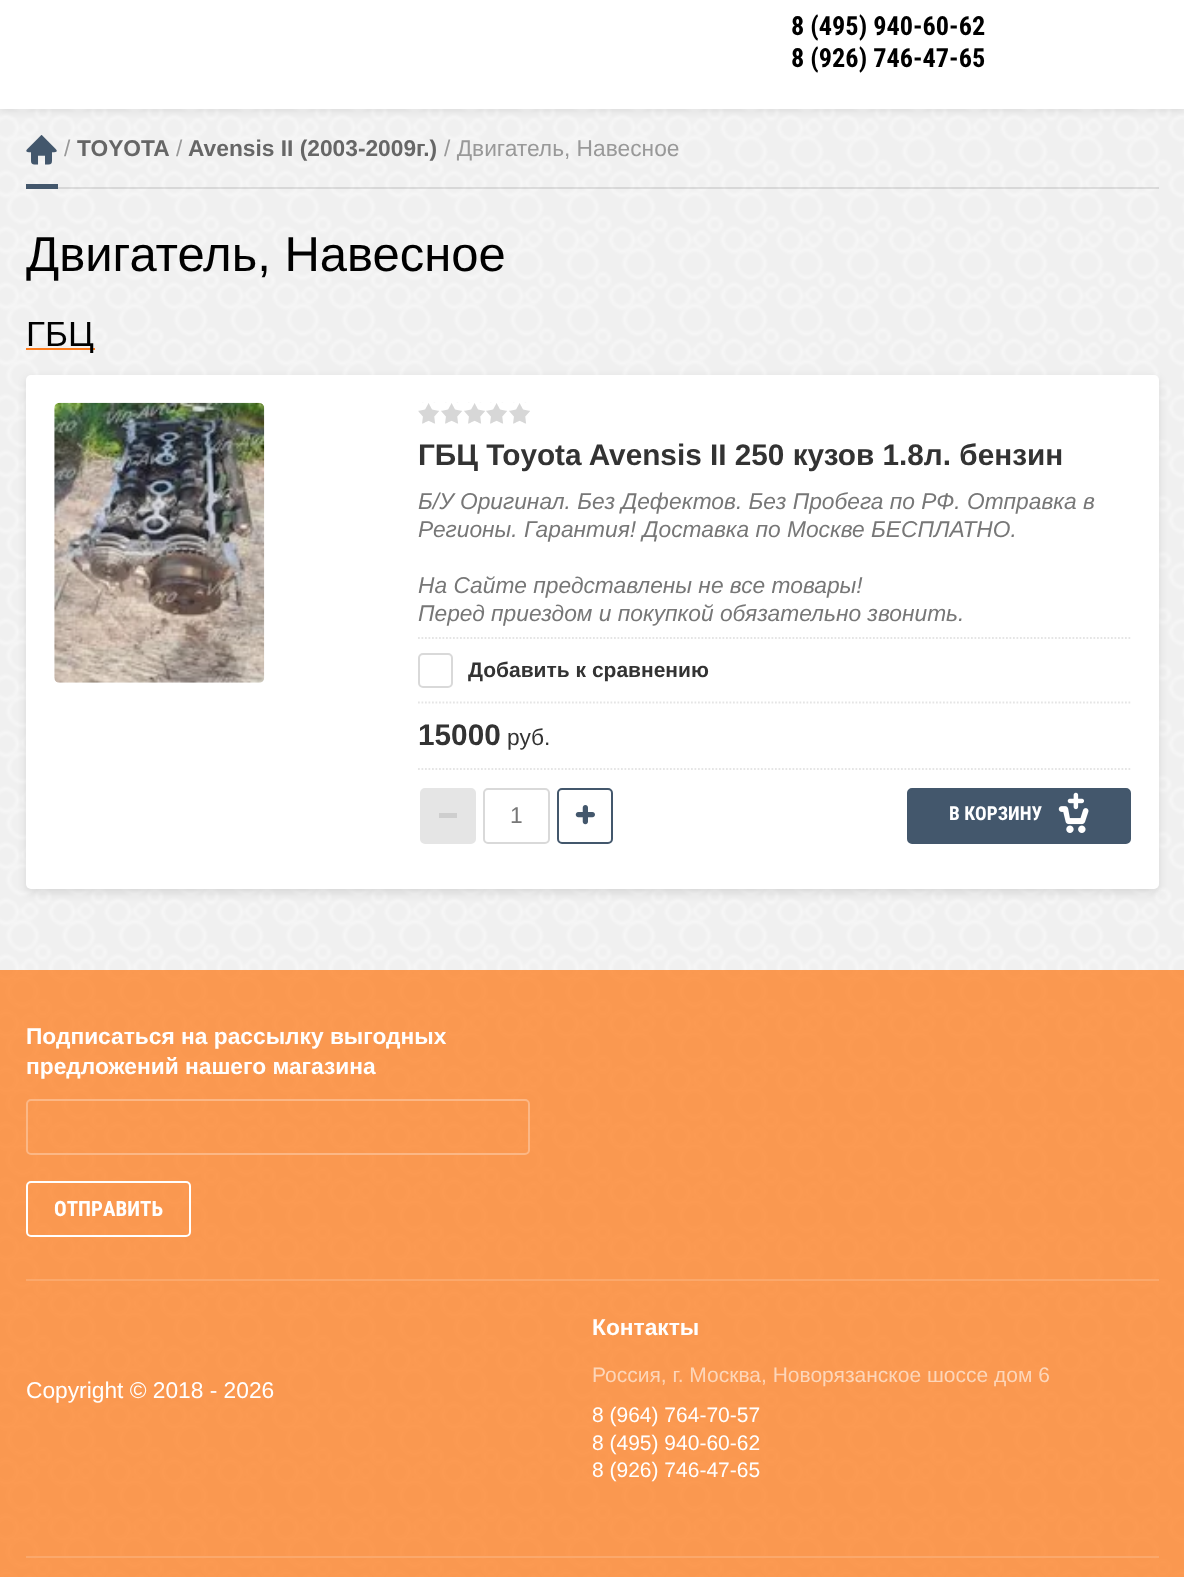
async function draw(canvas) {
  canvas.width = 1184
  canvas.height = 1577
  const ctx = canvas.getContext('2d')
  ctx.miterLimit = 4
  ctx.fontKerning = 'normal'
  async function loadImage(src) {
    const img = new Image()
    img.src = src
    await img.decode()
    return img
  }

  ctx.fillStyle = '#f0f0f0'
  ctx.fillRect(0, 0, 1184, 1577)
  ctx.drawImage(await loadImage('image0.png'), 0, 109, 1184, 1468)
  ctx.fillStyle = '#0000001a'
  ctx.filter = 'blur(4.5px)'
  ctx.beginPath()
  ctx.rect(0, -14, 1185, 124)
  ctx.fill()
  ctx.filter = 'none'
  ctx.fillStyle = '#fff'
  ctx.fillRect(0, 0, 1184, 109)
  ctx.font = 'bold 26.25px Roboto Condensed'
  ctx.fillStyle = '#000'
  ctx.fillText('8 (495) 940-60-62', 791, 35)
  ctx.fillText('8 (926) 746-47-65', 791, 67)
  ctx.fillStyle = '#0000001a'
  ctx.fillRect(58, 187, 1101, 2)
  ctx.drawImage(await loadImage('image1.png'), 26, 135, 31, 30)
  ctx.font = '22.75px Liberation Sans'
  ctx.fillStyle = '#999'
  ctx.fillText('/', 64, 156)
  ctx.font = 'bold 22.75px Liberation Sans'
  ctx.fillStyle = '#666'
  ctx.fillText('TOYOTA', 77, 156)
  ctx.font = '22.75px Liberation Sans'
  ctx.fillStyle = '#999'
  ctx.fillText('/', 176, 156)
  ctx.font = 'bold 22.75px Liberation Sans'
  ctx.fillStyle = '#666'
  ctx.fillText('Avensis II (2003-2009г.)', 188, 156)
  ctx.font = '22.75px Liberation Sans'
  ctx.fillStyle = '#999'
  ctx.fillText('/ Двигатель, Навесное', 444, 156)
  ctx.fillStyle = '#43576c'
  ctx.fillRect(26, 184, 32, 5)
  ctx.font = '49px Liberation Sans'
  ctx.fillStyle = '#000'
  ctx.fillText('Двигатель, Навесное', 26, 271)
  ctx.fillStyle = '#fd7b1b'
  ctx.fillRect(26, 348, 69, 2)
  ctx.font = '35px Liberation Sans'
  ctx.fillStyle = '#000'
  ctx.fillText('ГБЦ', 26, 346)
  ctx.fillStyle = '#0000001a'
  ctx.filter = 'blur(4.5px)'
  ctx.beginPath()
  ctx.roundRect(26, 378, 1133, 515, 5)
  ctx.fill()
  ctx.filter = 'none'
  ctx.fillStyle = '#fff'
  ctx.beginPath()
  ctx.roundRect(26, 375, 1133, 514, 5)
  ctx.fill()
  ctx.drawImage(await loadImage('image2.png'), 54, 402, 211, 281)
  ctx.drawImage(await loadImage('image3.png'), 418, 402, 112, 22)
  ctx.font = 'bold 29.75px Liberation Sans'
  ctx.fillStyle = '#333'
  ctx.fillText('ГБЦ Toyota Avensis II 250 кузов 1.8л. бензин', 418, 465)
  ctx.font = 'italic 22.75px Liberation Sans'
  ctx.fillStyle = '#777'
  ctx.fillText('Б/У Оригинал. Без Дефектов. Без Пробега по РФ. Отправка в', 418, 509)
  ctx.fillText('Регионы. Гарантия! Доставка по Москве БЕСПЛАТНО.', 418, 537)
  ctx.fillText('На Сайте представлены не все товары!', 418, 593)
  ctx.fillText('Перед приездом и покупкой обязательно звонить.', 418, 621)
  ctx.beginPath()
  ctx.moveTo(418, 638)
  ctx.lineTo(1130.5, 638)
  ctx.strokeStyle = '#e5e5e5'
  ctx.lineWidth = 1.8
  ctx.setLineDash([1.75, 1.75])
  ctx.stroke()
  ctx.beginPath()
  ctx.roundRect(419, 654, 33, 33, 4)
  ctx.strokeStyle = '#d9d9d9'
  ctx.lineWidth = 2
  ctx.setLineDash([])
  ctx.stroke()
  ctx.font = 'bold 21px Liberation Sans'
  ctx.fillStyle = '#333'
  ctx.fillText('Добавить к сравнению', 468, 677)
  ctx.beginPath()
  ctx.moveTo(418, 702.5)
  ctx.lineTo(1130.5, 702.5)
  ctx.strokeStyle = '#e5e5e5'
  ctx.lineWidth = 1.8
  ctx.setLineDash([1.75, 1.75])
  ctx.stroke()
  ctx.beginPath()
  ctx.moveTo(418, 769)
  ctx.lineTo(1130.5, 769)
  ctx.stroke()
  ctx.font = 'bold 29.75px Liberation Sans'
  ctx.fillText('15000', 418, 745)
  ctx.font = '22.75px Liberation Sans'
  ctx.fillText('руб.', 507, 745)
  ctx.fillStyle = '#e5e5e5'
  ctx.beginPath()
  ctx.roundRect(421, 789, 54, 54, 4)
  ctx.fill()
  ctx.lineWidth = 2
  ctx.setLineDash([])
  ctx.stroke()
  ctx.fillStyle = '#cecece'
  ctx.fillRect(439, 813, 18, 5)
  ctx.beginPath()
  ctx.roundRect(484, 789, 65, 54, 4)
  ctx.strokeStyle = '#d9d9d9'
  ctx.stroke()
  ctx.fillStyle = '#777'
  ctx.fillText('1', 510, 823)
  ctx.beginPath()
  ctx.roundRect(558, 789, 54, 54, 4)
  ctx.strokeStyle = '#43576c'
  ctx.stroke()
  ctx.drawImage(await loadImage('image4.png'), 575, 805, 20, 20)
  ctx.fillStyle = '#43576c'
  ctx.beginPath()
  ctx.roundRect(908, 789, 222, 54, 4)
  ctx.fill()
  ctx.stroke()
  ctx.font = 'bold 19.25px Roboto Condensed'
  ctx.fillStyle = '#fff'
  ctx.fillText('В КОРЗИНУ', 949, 820)
  ctx.drawImage(await loadImage('image5.png'), 1058, 792, 31, 41)
  ctx.fillStyle = '#fd7b1bbf'
  ctx.fillRect(0, 970, 1184, 607)
  ctx.font = 'bold 22.75px Liberation Sans'
  ctx.fillStyle = '#fff'
  ctx.fillText('Подписаться на рассылку выгодных', 26, 1044)
  ctx.fillText('предложений нашего магазина', 26, 1074)
  ctx.beginPath()
  ctx.roundRect(27, 1100, 502, 54, 4)
  ctx.strokeStyle = '#fcb785'
  ctx.stroke()
  ctx.beginPath()
  ctx.roundRect(27, 1182, 163, 54, 4)
  ctx.strokeStyle = '#fff'
  ctx.stroke()
  ctx.font = 'bold 21px Roboto Condensed'
  ctx.fillText('ОТПРАВИТЬ', 54, 1216)
  ctx.fillStyle = '#fba86b'
  ctx.fillRect(26, 1279, 1133, 2)
  ctx.font = '22.75px Liberation Sans'
  ctx.fillStyle = '#fff'
  ctx.fillText('Copyright © 2018 - 2026', 26, 1398)
  ctx.font = 'bold 22.75px Liberation Sans'
  ctx.fillText('Контакты', 592, 1335)
  ctx.font = '21px Liberation Sans'
  ctx.fillStyle = '#fdd6b9'
  ctx.fillText('Россия, г. Москва, Новорязанское шоссе дом 6', 592, 1382)
  ctx.fillStyle = '#fff'
  ctx.fillText('8 (964) 764-70-57', 592, 1422)
  ctx.fillText('8 (495) 940-60-62', 592, 1450)
  ctx.fillText('8 (926) 746-47-65', 592, 1477)
  ctx.fillStyle = '#fba86b'
  ctx.fillRect(26, 1556, 1133, 2)
}

draw(document.querySelector('canvas'))
